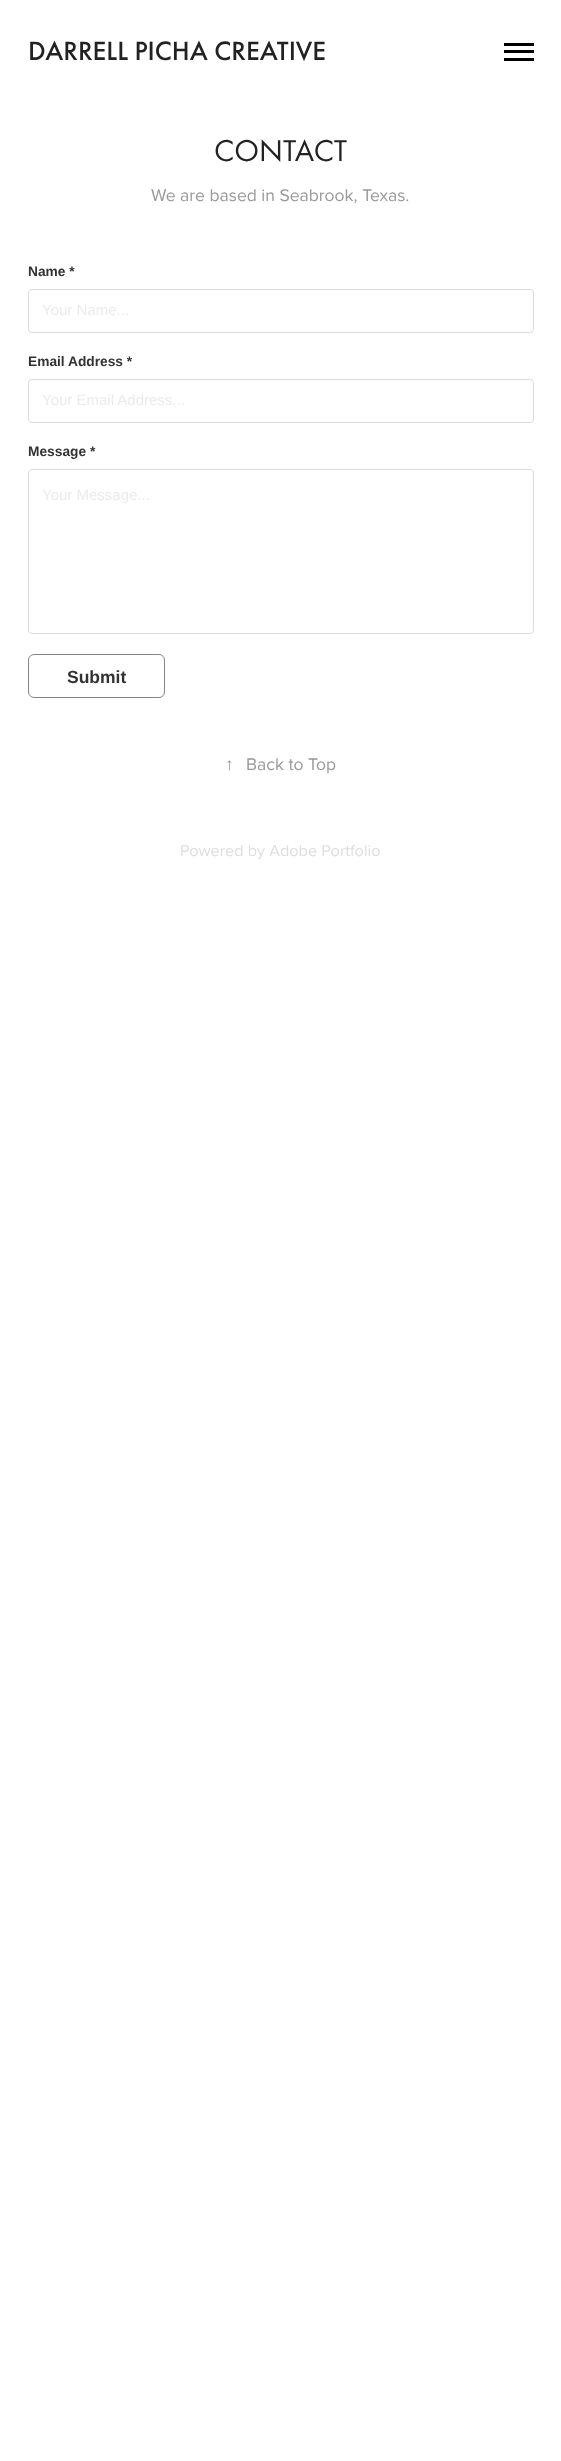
async function draw(canvas) {
  canvas.width = 561
  canvas.height = 2461
  const ctx = canvas.getContext('2d')
  ctx.miterLimit = 4
  ctx.fontKerning = 'normal'

  ctx.fillStyle = '#fff'
  ctx.fillRect(0, 0, 561, 2461)
  ctx.font = '500 27.5px Futura PT'
  ctx.fillStyle = '#222'
  ctx.fillText('DARRELL PICHA CREATIVE', 28, 60)
  ctx.fillStyle = '#000'
  ctx.fillRect(504, 43, 30, 3)
  ctx.fillRect(504, 50, 30, 3)
  ctx.fillRect(504, 58, 30, 3)
  ctx.font = '31.25px Futura PT'
  ctx.fillStyle = '#222'
  ctx.fillText('CONTACT', 214, 161)
  ctx.font = '17.5px Proxima Nova'
  ctx.fillStyle = '#999'
  ctx.fillText('We are based in Seabrook, Texas.', 151, 201)
  ctx.font = 'bold 13.75px Liberation Sans'
  ctx.fillStyle = '#333'
  ctx.fillText('Name *', 28, 276)
  ctx.beginPath()
  ctx.roundRect(28.5, 289.5, 505, 43, 3.5)
  ctx.strokeStyle = '#ddd'
  ctx.stroke()
  ctx.font = '15px Liberation Sans'
  ctx.fillStyle = '#ebebeb'
  ctx.fillText('Your Name...', 42, 315)
  ctx.font = 'bold 13.75px Liberation Sans'
  ctx.fillStyle = '#333'
  ctx.fillText('Email Address *', 28, 366)
  ctx.beginPath()
  ctx.roundRect(28.5, 379.5, 505, 43, 3.5)
  ctx.stroke()
  ctx.font = '15px Liberation Sans'
  ctx.fillStyle = '#ebebeb'
  ctx.fillText('Your Email Address...', 42, 405)
  ctx.font = 'bold 13.75px Liberation Sans'
  ctx.fillStyle = '#333'
  ctx.fillText('Message *', 28, 456)
  ctx.beginPath()
  ctx.roundRect(28.5, 469.5, 505, 164, 3.5)
  ctx.stroke()
  ctx.font = '15px Liberation Sans'
  ctx.fillStyle = '#ebebeb'
  ctx.fillText('Your Message...', 42, 500)
  ctx.beginPath()
  ctx.roundRect(28.5, 654.5, 136, 43, 5.5)
  ctx.strokeStyle = '#858585'
  ctx.stroke()
  ctx.font = 'bold 17.5px Liberation Sans'
  ctx.fillStyle = '#333'
  ctx.fillText('Submit', 67, 683)
  ctx.font = '17.5px Liberation Serif'
  ctx.fillStyle = '#999'
  ctx.fillText('↑', 225, 770)
  ctx.font = '17.5px Proxima Nova'
  ctx.fillText('Back to Top', 246, 770)
  ctx.font = '16.25px Proxima Nova'
  ctx.fillStyle = '#ddd'
  ctx.fillText('Powered by Adobe Portfolio', 180, 856)
}

draw(document.querySelector('canvas'))
